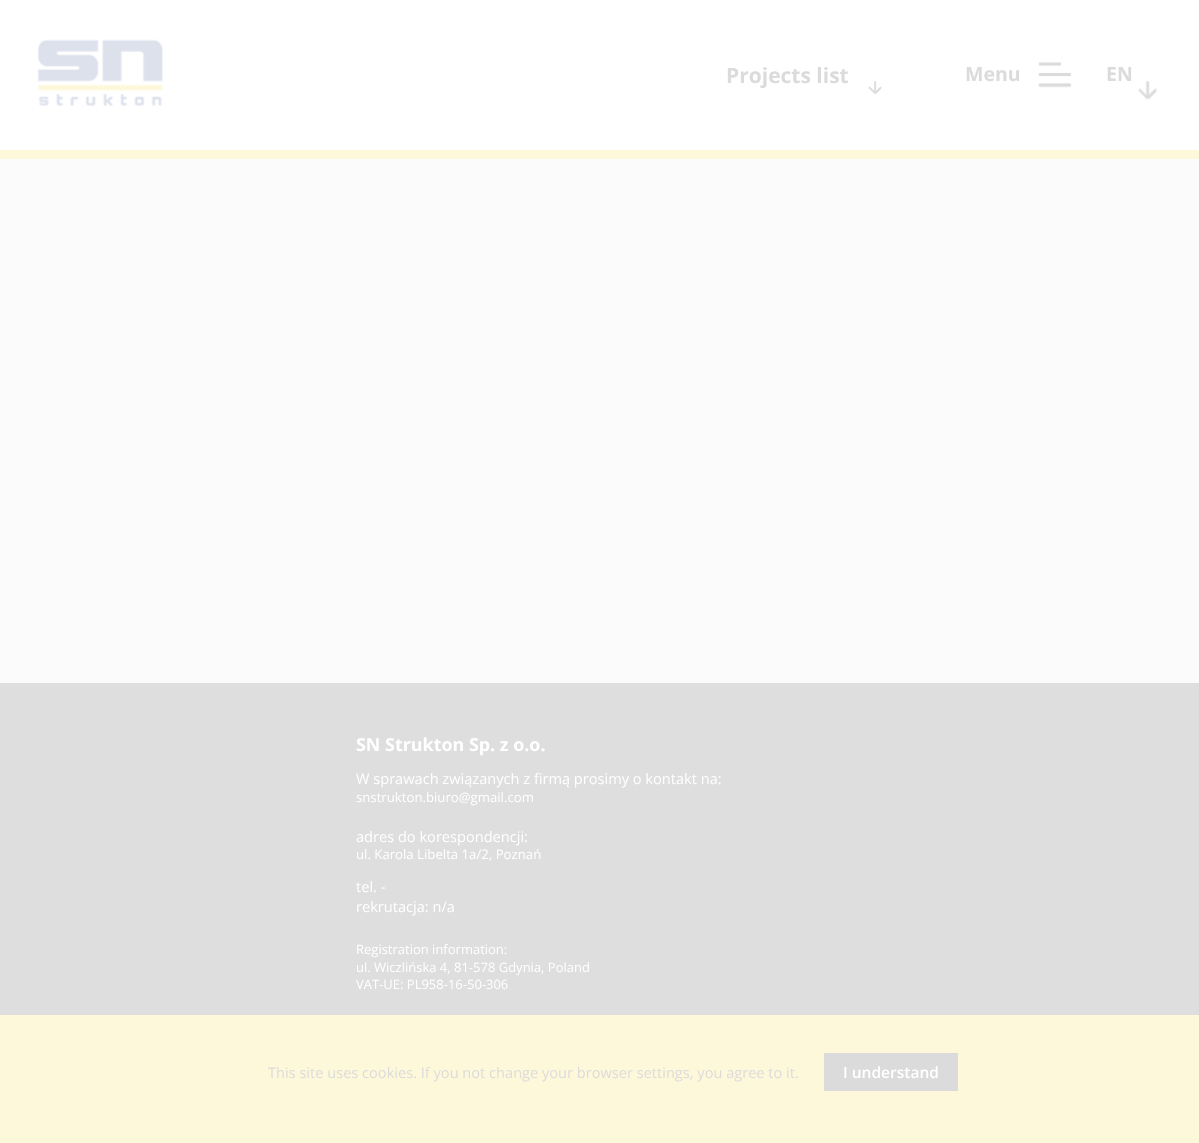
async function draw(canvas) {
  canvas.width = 1199
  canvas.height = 1143
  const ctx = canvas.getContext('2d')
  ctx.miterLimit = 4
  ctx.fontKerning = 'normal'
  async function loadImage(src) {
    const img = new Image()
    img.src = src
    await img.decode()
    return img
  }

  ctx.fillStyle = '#fbfbfb'
  ctx.fillRect(0, 0, 1199, 1143)
  ctx.fillStyle = '#fff'
  ctx.fillRect(0, 0, 1199, 150)
  ctx.fillStyle = '#fef8db'
  ctx.fillRect(0, 150, 1199, 9)
  ctx.drawImage(await loadImage('image0.png'), 37, 39, 126, 68)
  ctx.font = 'bold 21px Open Sans'
  ctx.fillStyle = '#dbdbdb'
  ctx.fillText('Projects list', 726, 83)
  ctx.drawImage(await loadImage('image1.png'), 868, 81, 14, 13)
  ctx.font = 'bold 19.5px Open Sans'
  ctx.fillText('Menu', 965, 81)
  ctx.drawImage(await loadImage('image2.png'), 1038, 62, 34, 26)
  ctx.drawImage(await loadImage('image3.png'), 1138, 81, 19, 19)
  ctx.fillText('EN', 1106, 81)
  ctx.fillStyle = '#dedede'
  ctx.fillRect(0, 683, 1199, 332)
  ctx.font = 'bold 17.9px Open Sans'
  ctx.fillStyle = '#fff'
  ctx.fillText('SN Strukton Sp. z o.o.', 356, 751)
  ctx.font = '14.6px Open Sans'
  ctx.fillText('W sprawach związanych z firmą prosimy o kontakt na:', 356, 784)
  ctx.font = '13.2px Open Sans'
  ctx.fillText('snstrukton.biuro@gmail.com', 356, 802)
  ctx.font = '14.6px Open Sans'
  ctx.fillText('adres do korespondencji:', 356, 842)
  ctx.font = '13.2px Open Sans'
  ctx.fillText('ul. Karola Libelta 1a/2, Poznań', 356, 859)
  ctx.font = '14.6px Open Sans'
  ctx.fillText('tel. -', 356, 892)
  ctx.fillText('rekrutacja: n/a', 356, 912)
  ctx.font = '13px Open Sans'
  ctx.fillText('Registration information:', 356, 954)
  ctx.fillText('ul. Wiczlińska 4, 81-578 Gdynia, Poland', 356, 972)
  ctx.fillText('VAT-UE: PL958-16-50-306', 356, 989)
  ctx.fillStyle = '#fef8db'
  ctx.fillRect(0, 1015, 1199, 128)
  ctx.font = '14.6px Open Sans'
  ctx.fillStyle = '#dbdbdb'
  ctx.fillText('This site uses cookies. If you not change your browser settings, you agree to it.', 268, 1078)
  ctx.fillRect(824, 1053, 134, 38)
  ctx.font = '600 15.5px Open Sans'
  ctx.fillStyle = '#fff'
  ctx.fillText('I understand', 843, 1078)
}

draw(document.querySelector('canvas'))
